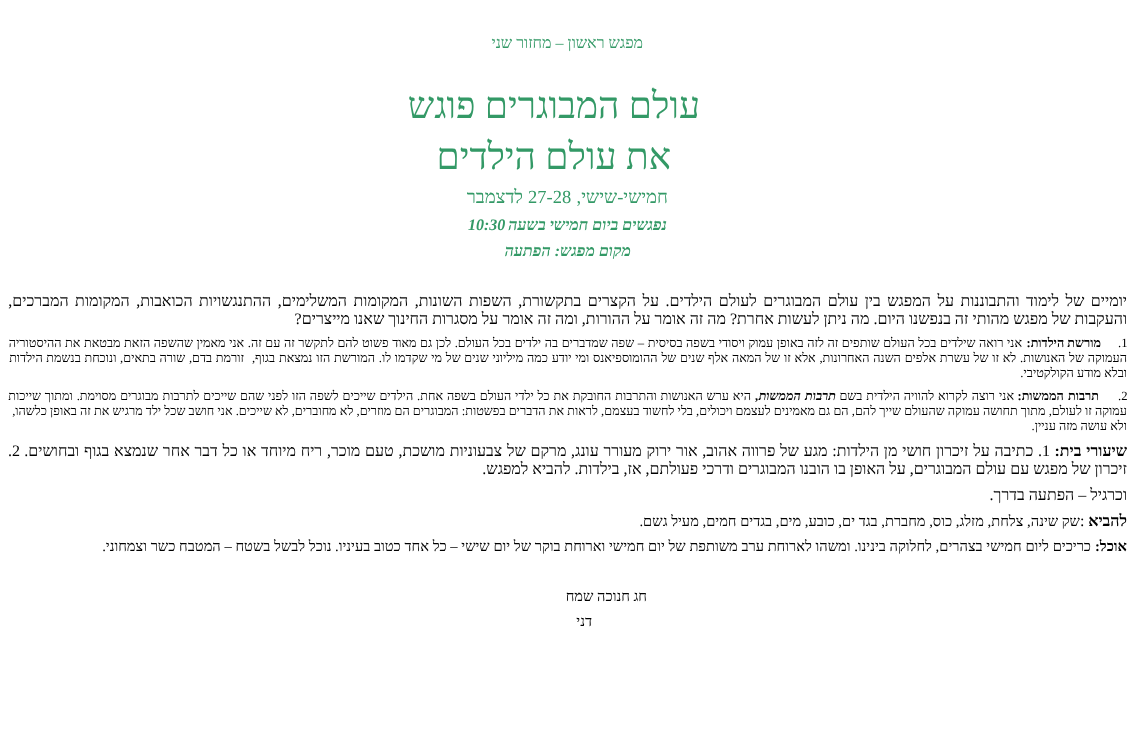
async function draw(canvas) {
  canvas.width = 1135
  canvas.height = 736
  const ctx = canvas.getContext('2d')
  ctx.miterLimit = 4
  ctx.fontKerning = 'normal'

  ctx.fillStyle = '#fff'
  ctx.fillRect(0, 0, 1135, 736)
  ctx.direction = 'rtl'
  ctx.font = '16px Liberation Serif'
  ctx.fillStyle = '#396'
  ctx.fillText('מפגש ראשון – מחזור שני', 643, 48)
  ctx.font = '37.25px Liberation Serif'
  ctx.fillText('עולם המבוגרים פוגש', 700, 118)
  ctx.fillText('את עולם הילדים', 671, 169)
  ctx.font = '18.5px Liberation Serif'
  ctx.fillText('חמישי-שישי,', 668, 203)
  ctx.direction = 'ltr'
  ctx.fillText('27-28', 528, 203)
  ctx.direction = 'rtl'
  ctx.fillText('לדצמבר', 523, 203)
  ctx.font = 'italic bold 16px Liberation Serif'
  ctx.fillText('נפגשים ביום חמישי בשעה', 667, 230)
  ctx.direction = 'ltr'
  ctx.fillText('10:30', 468, 230)
  ctx.direction = 'rtl'
  ctx.fillText('מקום מפגש: הפתעה', 631, 256)
  ctx.wordSpacing = '2.5px'
  ctx.font = '16px Liberation Serif'
  ctx.fillStyle = '#000'
  ctx.fillText('יומיים של לימוד והתבוננות על המפגש בין עולם המבוגרים לעולם הילדים. על הקצרים בתקשורת, השפות השונות, המקומות המשלימים, ההתנגשויות הכואבות, המקומות המברכים,', 1127, 306)
  ctx.wordSpacing = '0px'
  ctx.fillText('והעקבות של מפגש מהותי זה בנפשנו היום. מה ניתן לעשות אחרת? מה זה אומר על ההורות, ומה זה אומר על מסגרות החינוך שאנו מייצרים?', 1127, 324)
  ctx.direction = 'ltr'
  ctx.font = '12.67px Liberation Serif'
  ctx.fillText('.1', 1118, 347)
  ctx.direction = 'rtl'
  ctx.font = 'bold 12.67px Liberation Serif'
  ctx.fillText('מורשת הילדות:', 1101, 347)
  ctx.wordSpacing = '0.4px'
  ctx.font = '12.67px Liberation Serif'
  ctx.fillText('אני רואה שילדים בכל העולם שותפים זה לזה באופן עמוק ויסודי בשפה בסיסית – שפה שמדברים בה ילדים בכל העולם. לכן גם מאוד פשוט להם לתקשר זה עם זה. אני מאמין שהשפה הזאת מבטאת את ההיסטוריה', 1022, 347)
  ctx.wordSpacing = '0.6px'
  ctx.fillText('העמוקה של האנושות. לא זו של עשרת אלפים השנה האחרונות, אלא זו של המאה אלף שנים של ההומוספיאנס ומי יודע כמה מיליוני שנים של מי שקדמו לו. המורשת הזו נמצאת בגוף,', 1127, 362)
  ctx.wordSpacing = '0.5px'
  ctx.fillText('זורמת בדם, שורה בתאים, ונוכחת בנשמת הילדות', 244, 362)
  ctx.wordSpacing = '0px'
  ctx.fillText('ובלא מודע הקולקטיבי.', 1127, 377)
  ctx.direction = 'ltr'
  ctx.fillText('.2', 1118, 400)
  ctx.wordSpacing = '1px'
  ctx.direction = 'rtl'
  ctx.font = 'bold 12.67px Liberation Serif'
  ctx.fillText('תרבות הממשות:', 1099, 400)
  ctx.wordSpacing = '0.75px'
  ctx.font = '12.67px Liberation Serif'
  ctx.fillText('אני רוצה לקרוא להוויה הילדית בשם', 1014, 400)
  ctx.wordSpacing = '1px'
  ctx.font = 'italic bold 12.67px Liberation Serif'
  ctx.fillText('תרבות הממשות,', 836, 400)
  ctx.wordSpacing = '0.7px'
  ctx.font = '12.67px Liberation Serif'
  ctx.fillText('היא ערש האנושות והתרבות החובקת את כל ילדי העולם בשפה אחת. הילדים שייכים לשפה הזו לפני שהם שייכים לתרבות מבוגרים מסוימת. ומתוך שייכות', 751, 400)
  ctx.wordSpacing = '0px'
  ctx.fillText('עמוקה זו לעולם, מתוך תחושה עמוקה שהעולם שייך להם, הם גם מאמינים לעצמם ויכולים, בלי לחשוד בעצמם, לראות את הדברים בפשטות: המבוגרים הם מוזרים, לא מחוברים, לא שייכים. אני חושב שכל ילד מרגיש את זה באופן כלשהו,', 1127, 415)
  ctx.fillText('ולא עושה מזה עניין.', 1127, 430)
  ctx.wordSpacing = '0.75px'
  ctx.font = 'bold 16px Liberation Serif'
  ctx.fillText('שיעורי בית:', 1127, 456)
  ctx.wordSpacing = '0px'
  ctx.direction = 'ltr'
  ctx.font = '16px Liberation Serif'
  ctx.fillText('1', 1042, 456)
  ctx.wordSpacing = '0.75px'
  ctx.direction = 'rtl'
  ctx.fillText('. כתיבה על זיכרון חושי מן הילדות: מגע של פרווה אהוב, אור ירוק מעורר עונג, מרקם של צבעוניות מושכת, טעם מוכר, ריח מיוחד או כל דבר אחר שנמצא בגוף ובחושים.', 1042, 456)
  ctx.wordSpacing = '0px'
  ctx.direction = 'ltr'
  ctx.fillText('.2', 8, 456)
  ctx.direction = 'rtl'
  ctx.fillText('זיכרון של מפגש עם עולם המבוגרים, על האופן בו הובנו המבוגרים ודרכי פעולתם, אז, בילדות. להביא למפגש.', 1127, 474)
  ctx.fillText('וכרגיל – הפתעה בדרך.', 1127, 500)
  ctx.font = 'bold 16px Liberation Serif'
  ctx.fillText('להביא', 1127, 526)
  ctx.direction = 'ltr'
  ctx.font = '16px Liberation Serif'
  ctx.fillText(':', 1080, 526)
  ctx.direction = 'rtl'
  ctx.font = '14.67px Liberation Serif'
  ctx.fillText('שק שינה, צלחת, מזלג, כוס, מחברת, בגד ים, כובע, מים, בגדים חמים, מעיל גשם.', 1080, 526)
  ctx.font = 'bold 14.67px Liberation Serif'
  ctx.fillText('אוכל:', 1127, 551)
  ctx.font = '14.67px Liberation Serif'
  ctx.fillText('כריכים ליום חמישי בצהרים, לחלוקה בינינו. ומשהו לארוחת ערב משותפת של יום חמישי וארוחת בוקר של יום שישי – כל אחד כטוב בעיניו. נוכל לבשל בשטח – המטבח כשר וצמחוני.', 1091, 551)
  ctx.fillText('חג חנוכה שמח', 647, 601)
  ctx.fillText('דני', 592, 626)
}

draw(document.querySelector('canvas'))
